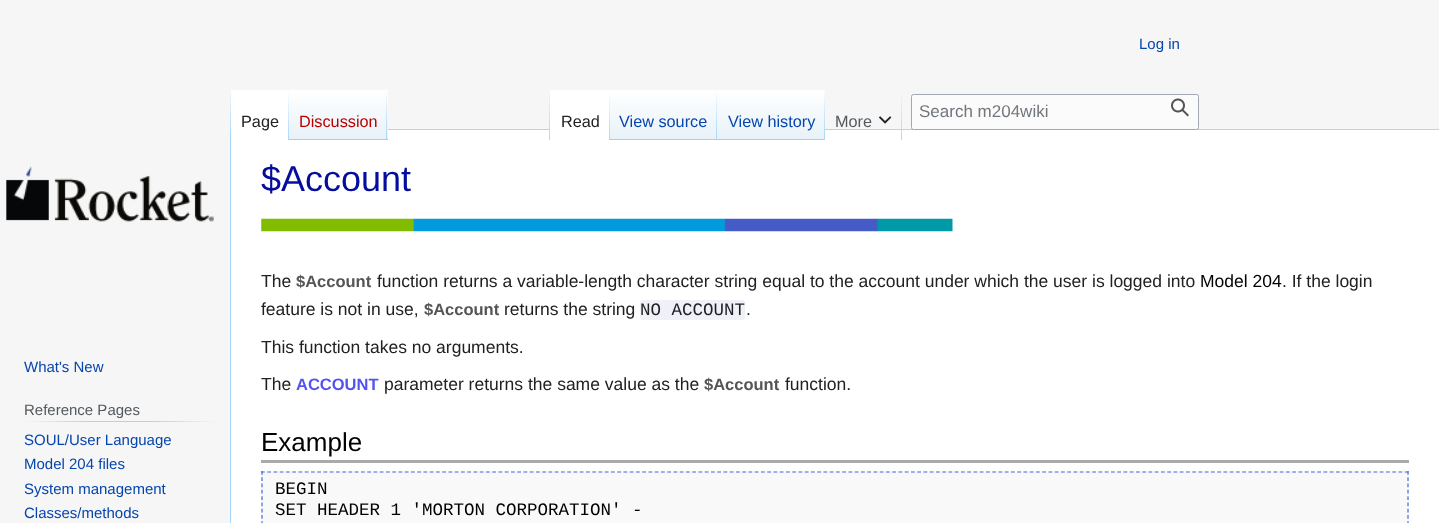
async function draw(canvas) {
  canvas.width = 1439
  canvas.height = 523
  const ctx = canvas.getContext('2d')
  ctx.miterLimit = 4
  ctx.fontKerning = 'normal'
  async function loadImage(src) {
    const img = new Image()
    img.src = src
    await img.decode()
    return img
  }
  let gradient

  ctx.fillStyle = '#f6f6f6'
  ctx.fillRect(0, 0, 1439, 523)
  ctx.font = '15px Liberation Sans'
  ctx.fillStyle = '#0645ad'
  ctx.fillText('Log in', 1139, 49)
  gradient = ctx.createLinearGradient(231, 90, 231, 140)
  gradient.addColorStop(0, '#a7d7f900')
  gradient.addColorStop(1, '#a7d7f9')
  ctx.fillStyle = gradient
  ctx.fillRect(230, 90, 1, 39)
  ctx.fillStyle = '#fff'
  ctx.beginPath()
  ctx.rect(230.5, 129.5, 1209, 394)
  ctx.fill()
  ctx.strokeStyle = '#a7d7f9'
  ctx.stroke()
  ctx.fillRect(231, 90, 57, 40)
  gradient = ctx.createLinearGradient(288, 90, 288, 140)
  gradient.addColorStop(0, '#fff')
  gradient.addColorStop(1, '#a7d7f9')
  ctx.fillStyle = gradient
  ctx.fillRect(288, 90, 1, 50)
  ctx.font = '16.25px Liberation Sans'
  ctx.fillStyle = '#202122'
  ctx.fillText('Page', 241, 127)
  gradient = ctx.createLinearGradient(338, 140, 338, 90)
  gradient.addColorStop(0, '#77c1f6')
  gradient.addColorStop(0.03, '#e8f2f8')
  gradient.addColorStop(1, '#fff')
  ctx.fillStyle = gradient
  ctx.fillRect(289, 90, 99, 50)
  gradient = ctx.createLinearGradient(387, 90, 387, 140)
  gradient.addColorStop(0, '#a7d7f900')
  gradient.addColorStop(1, '#a7d7f9')
  ctx.fillStyle = gradient
  ctx.fillRect(386, 90, 1, 50)
  ctx.fillStyle = '#ba0000'
  ctx.fillText('Discussion', 299, 127)
  ctx.fillStyle = '#ffffff80'
  ctx.beginPath()
  ctx.roundRect(911.5, 94.5, 287, 35, 2)
  ctx.fill()
  ctx.strokeStyle = '#a2a9b1'
  ctx.stroke()
  ctx.font = '17px Liberation Sans'
  ctx.fillStyle = '#72777d'
  ctx.fillText('Search m204wiki', 919, 117)
  ctx.drawImage(await loadImage('image0.png'), 1171, 98, 18, 19)
  gradient = ctx.createLinearGradient(549, 90, 549, 140)
  gradient.addColorStop(0, '#a7d7f900')
  gradient.addColorStop(1, '#a7d7f9')
  ctx.fillStyle = gradient
  ctx.fillRect(549, 90, 1, 50)
  ctx.fillStyle = '#fff'
  ctx.fillRect(550, 90, 59, 40)
  gradient = ctx.createLinearGradient(609, 90, 609, 140)
  gradient.addColorStop(0, '#fff')
  gradient.addColorStop(1, '#a7d7f9')
  ctx.fillStyle = gradient
  ctx.fillRect(609, 90, 1, 50)
  ctx.font = '16.25px Liberation Sans'
  ctx.fillStyle = '#202122'
  ctx.fillText('Read', 561, 127)
  gradient = ctx.createLinearGradient(664, 140, 664, 90)
  gradient.addColorStop(0, '#77c1f6')
  gradient.addColorStop(0.03, '#e8f2f8')
  gradient.addColorStop(1, '#fff')
  ctx.fillStyle = gradient
  ctx.fillRect(610, 90, 108, 50)
  gradient = ctx.createLinearGradient(717, 90, 717, 140)
  gradient.addColorStop(0, '#a7d7f900')
  gradient.addColorStop(1, '#a7d7f9')
  ctx.fillStyle = gradient
  ctx.fillRect(716, 90, 1, 50)
  ctx.fillStyle = '#0645ad'
  ctx.fillText('View source', 619, 127)
  gradient = ctx.createLinearGradient(771, 140, 771, 90)
  gradient.addColorStop(0, '#77c1f6')
  gradient.addColorStop(0.03, '#e8f2f8')
  gradient.addColorStop(1, '#fff')
  ctx.fillStyle = gradient
  ctx.fillRect(718, 90, 107, 50)
  gradient = ctx.createLinearGradient(824, 90, 824, 140)
  gradient.addColorStop(0, '#a7d7f900')
  gradient.addColorStop(1, '#a7d7f9')
  ctx.fillStyle = gradient
  ctx.fillRect(824, 90, 1, 50)
  ctx.fillStyle = '#0645ad'
  ctx.fillText('View history', 728, 127)
  gradient = ctx.createLinearGradient(902, 90, 902, 140)
  gradient.addColorStop(0, '#a7d7f900')
  gradient.addColorStop(1, '#a7d7f9')
  ctx.fillStyle = gradient
  ctx.fillRect(901, 90, 1, 50)
  ctx.fillStyle = '#54595d'
  ctx.fillText('More', 835, 127)
  ctx.drawImage(await loadImage('image1.png'), 878, 116, 14, 8)
  ctx.drawImage(await loadImage('image2.png'), 6, 166, 208, 56)
  ctx.font = '15px Liberation Sans'
  ctx.fillStyle = '#0645ad'
  ctx.fillText('What\'s New', 24, 372)
  gradient = ctx.createLinearGradient(24, 422, 218, 422)
  gradient.addColorStop(0, '#f6f6f6')
  gradient.addColorStop(0.33, '#c8ccd1')
  gradient.addColorStop(0.66, '#c8ccd1')
  gradient.addColorStop(1, '#f6f6f6')
  ctx.fillStyle = gradient
  ctx.fillRect(24, 421, 194, 1)
  ctx.fillStyle = '#54595d'
  ctx.fillText('Reference Pages', 24, 415)
  ctx.fillStyle = '#0645ad'
  ctx.fillText('SOUL/User Language', 24, 445)
  ctx.fillText('Model 204 files', 24, 469)
  ctx.fillText('System management', 24, 494)
  ctx.fillText('Classes/methods', 24, 518)
  ctx.drawImage(await loadImage('image3.png'), 261, 218, 692, 14)
  ctx.font = '36px Liberation Sans'
  ctx.fillStyle = '#050d9e'
  ctx.fillText('$Account', 261, 191)
  ctx.font = '17.5px Liberation Sans'
  ctx.fillStyle = '#202122'
  ctx.fillText('The', 261, 287)
  ctx.font = 'bold 16.5px Liberation Sans'
  ctx.fillStyle = '#555'
  ctx.fillText('$Account', 296, 287)
  ctx.font = '17.5px Liberation Sans'
  ctx.fillStyle = '#202122'
  ctx.fillText('function returns a variable-length character string equal to the account under which the user is logged into', 377, 287)
  ctx.fillStyle = '#000'
  ctx.fillText('Model 204', 1200, 287)
  ctx.fillStyle = '#202122'
  ctx.fillText('. If the login', 1282, 287)
  ctx.fillText('feature is not in use,', 261, 315)
  ctx.font = 'bold 16.5px Liberation Sans'
  ctx.fillStyle = '#555'
  ctx.fillText('$Account', 424, 315)
  ctx.font = '17.5px Liberation Sans'
  ctx.fillStyle = '#202122'
  ctx.fillText('returns the string', 504, 315)
  ctx.fillStyle = '#f0f0f9'
  ctx.beginPath()
  ctx.roundRect(640, 300, 105, 20, 2.5)
  ctx.fill()
  ctx.font = '17.5px Liberation Mono'
  ctx.fillStyle = '#202122'
  ctx.fillText('NO ACCOUNT', 640, 315)
  ctx.font = '17.5px Liberation Sans'
  ctx.fillText('.', 746, 315)
  ctx.fillText('This function takes no arguments.', 261, 353)
  ctx.fillText('The', 261, 390)
  ctx.font = 'bold 16.5px Liberation Sans'
  ctx.fillStyle = '#5353ef'
  ctx.fillText('ACCOUNT', 296, 390)
  ctx.font = '17.5px Liberation Sans'
  ctx.fillStyle = '#202122'
  ctx.fillText('parameter returns the same value as the', 384, 390)
  ctx.font = 'bold 16.5px Liberation Sans'
  ctx.fillStyle = '#555'
  ctx.fillText('$Account', 704, 390)
  ctx.font = '17.5px Liberation Sans'
  ctx.fillStyle = '#202122'
  ctx.fillText('function.', 785, 390)
  ctx.fillStyle = '#aaa'
  ctx.fillRect(261, 460, 1148, 3)
  ctx.font = '26px Liberation Sans'
  ctx.fillStyle = '#000'
  ctx.fillText('Example', 261, 451)
  ctx.fillStyle = '#f9f9f9'
  ctx.fillRect(261, 471, 1148, 52)
  ctx.beginPath()
  ctx.moveTo(261, 472)
  ctx.lineTo(1409, 472)
  ctx.strokeStyle = '#4169e1'
  ctx.lineWidth = 1.2
  ctx.setLineDash([3.75, 2.5])
  ctx.stroke()
  ctx.beginPath()
  ctx.moveTo(1408, 471)
  ctx.lineTo(1408, 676)
  ctx.setLineDash([3.75, 2.54])
  ctx.stroke()
  ctx.beginPath()
  ctx.moveTo(262, 471)
  ctx.lineTo(262, 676)
  ctx.stroke()
  ctx.font = '17.5px Liberation Mono'
  ctx.fillStyle = '#000'
  ctx.fillText('BEGIN', 275, 494)
  ctx.fillText('SET HEADER 1 \'MORTON CORPORATION\' -', 275, 515)
}

draw(document.querySelector('canvas'))
